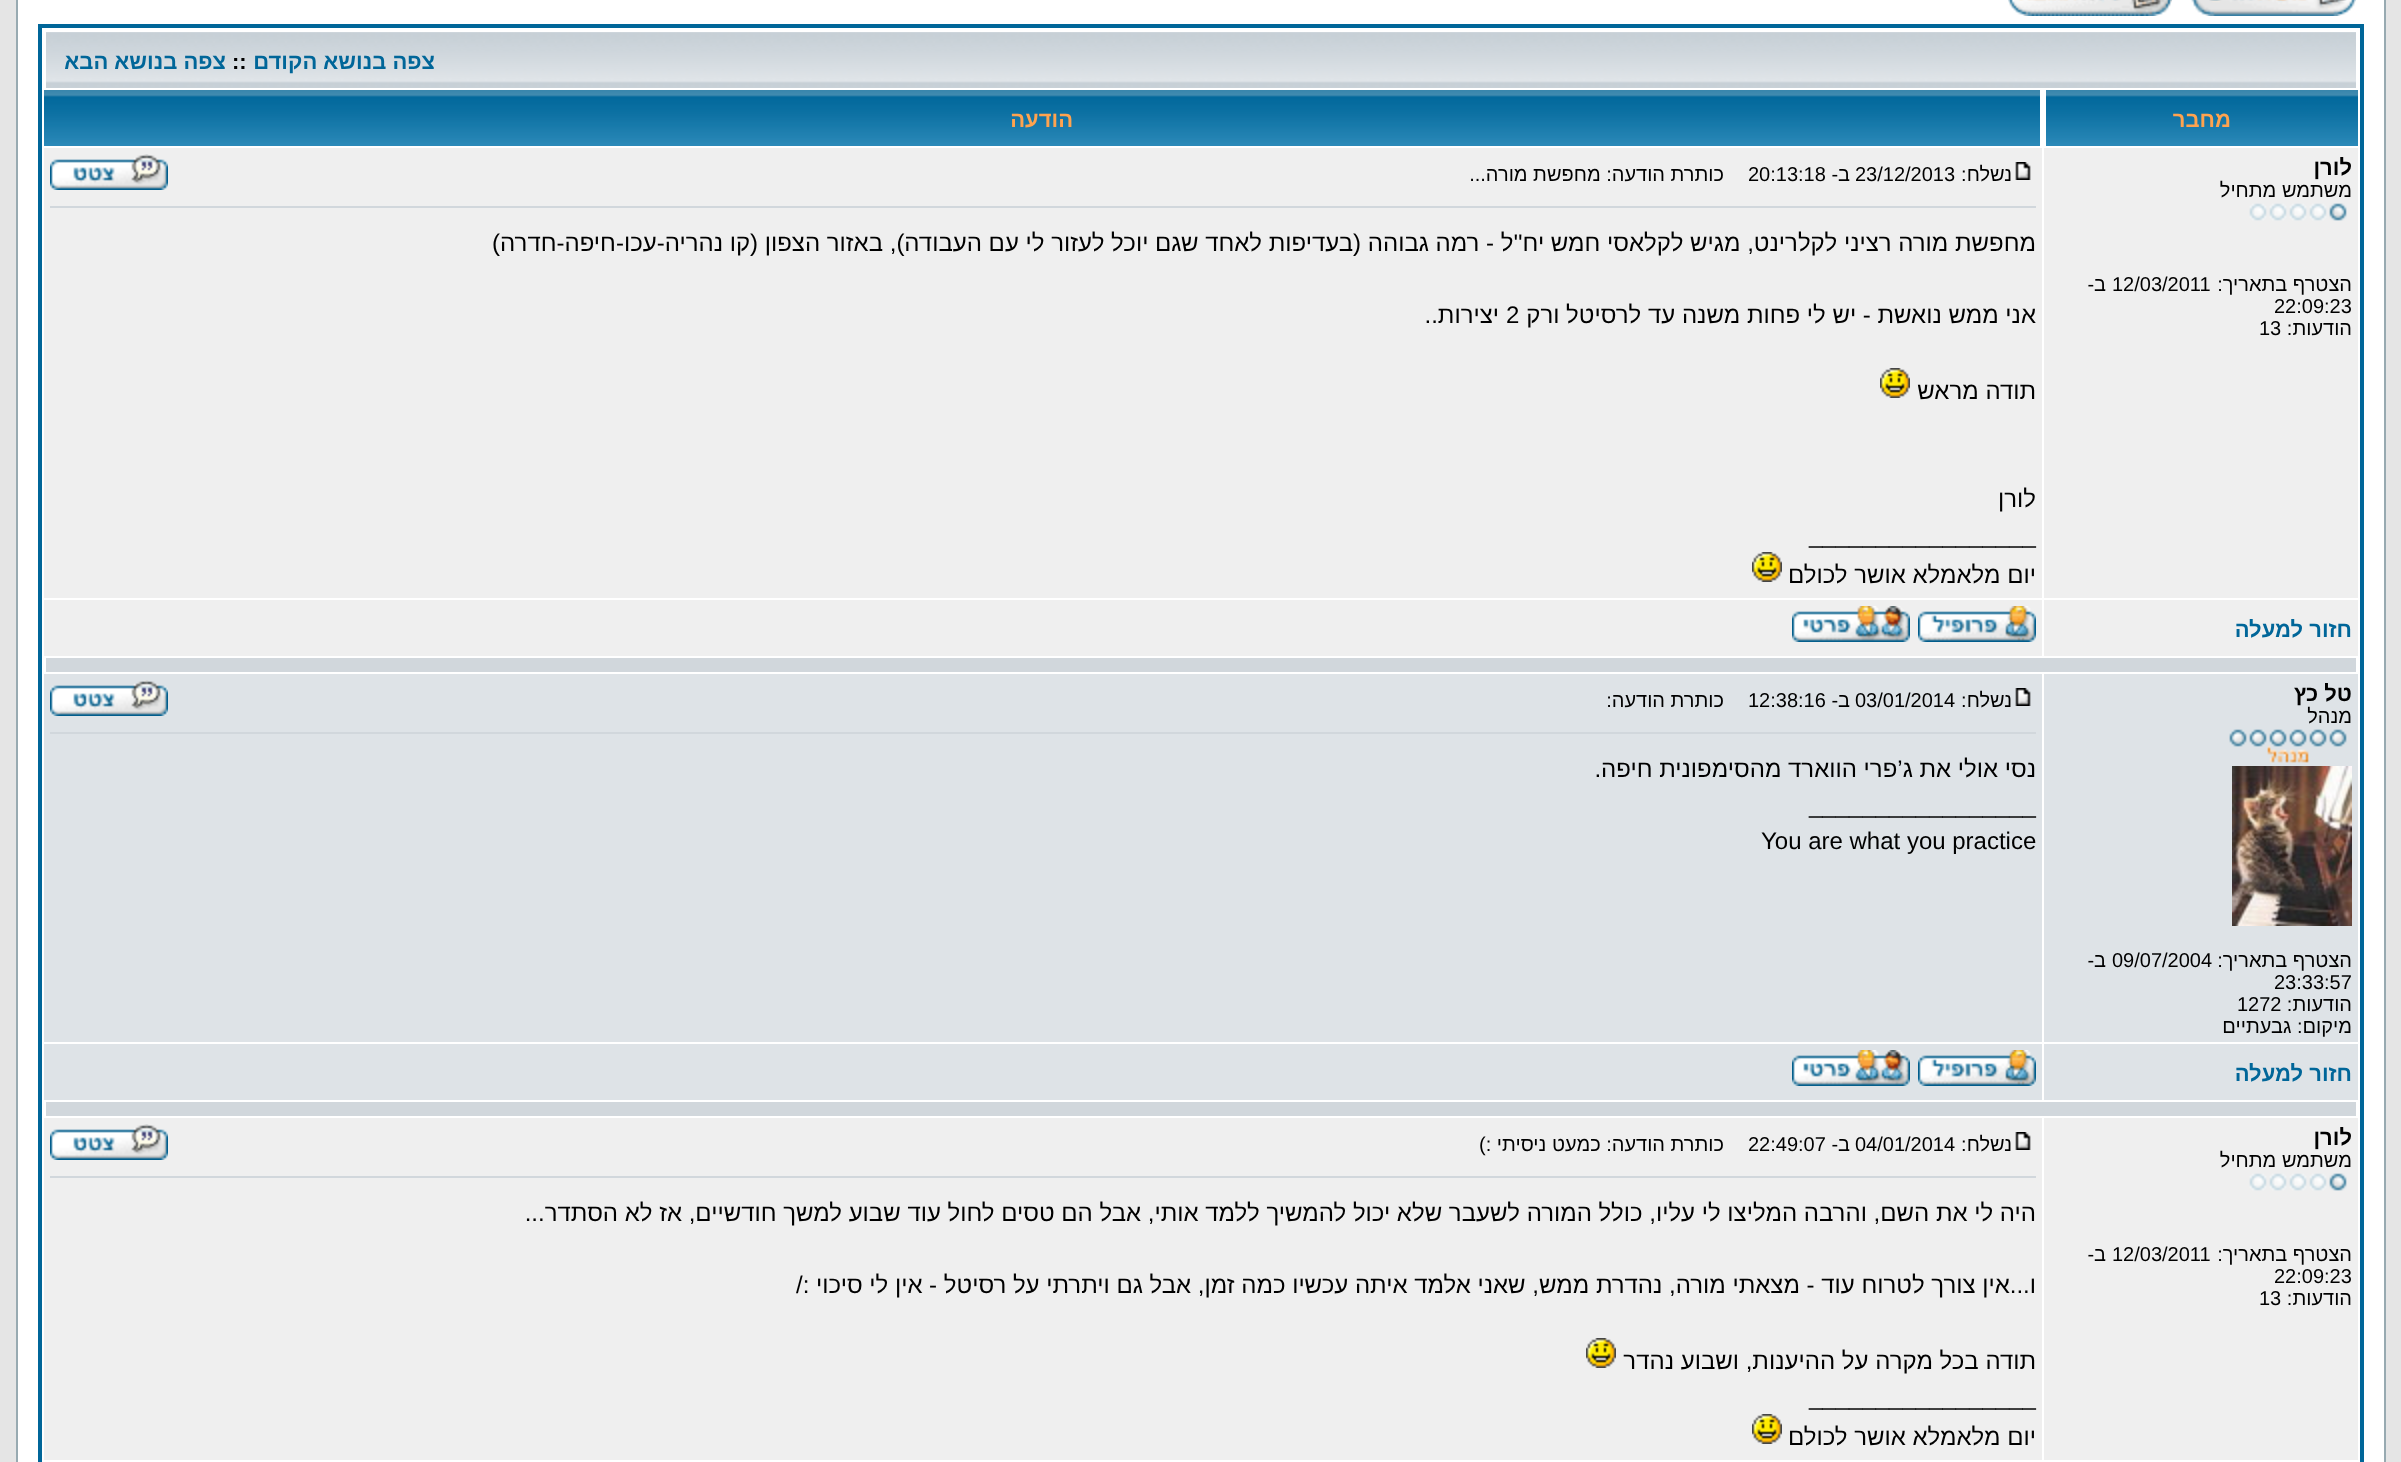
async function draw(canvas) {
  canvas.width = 2401
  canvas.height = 1462
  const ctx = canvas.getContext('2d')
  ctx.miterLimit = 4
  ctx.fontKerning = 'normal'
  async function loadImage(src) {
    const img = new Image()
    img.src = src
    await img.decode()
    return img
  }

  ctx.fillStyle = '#e5e5e5'
  ctx.fillRect(0, 0, 2401, 1462)
  ctx.fillStyle = '#fff'
  ctx.beginPath()
  ctx.rect(17, -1, 2368, 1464)
  ctx.fill()
  ctx.strokeStyle = '#98aab1'
  ctx.lineWidth = 2
  ctx.stroke()
  ctx.drawImage(await loadImage('image0.png'), 2191, 0, 165, 16)
  ctx.drawImage(await loadImage('image1.png'), 2008, 0, 164, 16)
  ctx.strokeStyle = '#069'
  ctx.lineWidth = 4
  ctx.strokeRect(40, 26, 2322, 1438)
  ctx.drawImage(await loadImage('image2.png'), 46, 32, 2310, 56)
  ctx.direction = 'rtl'
  ctx.font = 'bold 22px Liberation Sans'
  ctx.fillStyle = '#069'
  ctx.fillText('צפה בנושא הקודם', 435, 69)
  ctx.direction = 'ltr'
  ctx.fillStyle = '#000'
  ctx.fillText('::', 232, 69)
  ctx.direction = 'rtl'
  ctx.fillStyle = '#069'
  ctx.fillText('צפה בנושא הבא', 226, 69)
  ctx.drawImage(await loadImage('image3.png'), 2046, 90, 312, 56)
  ctx.fillStyle = '#ffa34f'
  ctx.fillText('מחבר', 2231, 127)
  ctx.drawImage(await loadImage('image4.png'), 44, 90, 1996, 56)
  ctx.fillText('הודעה', 1073, 127)
  ctx.fillStyle = '#efefef'
  ctx.fillRect(2044, 148, 314, 450)
  ctx.fillStyle = '#000'
  ctx.fillText('לורן', 2352, 175)
  ctx.font = '20px Liberation Sans'
  ctx.fillText('משתמש מתחיל', 2352, 197)
  ctx.drawImage(await loadImage('image5.png'), 2249, 203, 98, 18)
  ctx.fillText('הצטרף בתאריך:', 2352, 291)
  ctx.direction = 'ltr'
  ctx.fillText('12/03/2011', 2112, 291)
  ctx.direction = 'rtl'
  ctx.fillText('ב-', 2106, 291)
  ctx.direction = 'ltr'
  ctx.fillText('22:09:23', 2274, 313)
  ctx.direction = 'rtl'
  ctx.fillText('הודעות:', 2352, 335)
  ctx.direction = 'ltr'
  ctx.fillText('13', 2259, 335)
  ctx.fillStyle = '#efefef'
  ctx.fillRect(44, 148, 1998, 450)
  ctx.drawImage(await loadImage('image6.png'), 2015, 162, 16, 18)
  ctx.direction = 'rtl'
  ctx.fillStyle = '#000'
  ctx.fillText('נשלח:', 2012, 181)
  ctx.direction = 'ltr'
  ctx.fillText('23/12/2013', 1855, 181)
  ctx.direction = 'rtl'
  ctx.fillText('ב-', 1850, 181)
  ctx.direction = 'ltr'
  ctx.fillText('20:13:18', 1748, 181)
  ctx.direction = 'rtl'
  ctx.fillText('כותרת הודעה: מחפשת מורה...', 1724, 181)
  ctx.drawImage(await loadImage('image7.png'), 50, 154, 118, 36)
  ctx.fillStyle = '#d1d7dc'
  ctx.fillRect(50, 206, 1986, 2)
  ctx.font = '24px Liberation Sans'
  ctx.fillStyle = '#000'
  ctx.fillText('מחפשת מורה רציני לקלרינט, מגיש לקלאסי חמש יח\'\'ל - רמה גבוהה (בעדיפות לאחד שגם יוכל לעזור לי עם העבודה), באזור הצפון (קו נהריה-עכו-חיפה-חדרה)', 2036, 251)
  ctx.fillText('אני ממש נואשת - יש לי פחות משנה עד לרסיטל ורק', 2036, 323)
  ctx.direction = 'ltr'
  ctx.fillText('2', 1506, 323)
  ctx.direction = 'rtl'
  ctx.fillText('יצירות..', 1499, 323)
  ctx.fillText('תודה מראש', 2036, 399)
  ctx.drawImage(await loadImage('image8.png'), 1880, 368, 30, 30)
  ctx.fillText('לורן', 2036, 507)
  ctx.direction = 'ltr'
  ctx.fillText('_________________', 1809, 543)
  ctx.direction = 'rtl'
  ctx.fillText('יום מלאמלא אושר לכולם', 2036, 583)
  ctx.drawImage(await loadImage('image8.png'), 1752, 552, 30, 30)
  ctx.fillStyle = '#efefef'
  ctx.fillRect(2044, 600, 314, 56)
  ctx.font = 'bold 22px Liberation Sans'
  ctx.fillStyle = '#069'
  ctx.fillText('חזור למעלה', 2352, 637)
  ctx.fillStyle = '#efefef'
  ctx.fillRect(44, 600, 1998, 56)
  ctx.drawImage(await loadImage('image9.png'), 1918, 606, 118, 36)
  ctx.drawImage(await loadImage('image10.png'), 1792, 606, 118, 36)
  ctx.fillStyle = '#d1d7dc'
  ctx.fillRect(46, 658, 2310, 14)
  ctx.fillStyle = '#dee3e7'
  ctx.fillRect(2044, 674, 314, 368)
  ctx.fillStyle = '#000'
  ctx.fillText('טל כץ', 2352, 701)
  ctx.font = '20px Liberation Sans'
  ctx.fillText('מנהל', 2352, 723)
  ctx.drawImage(await loadImage('image11.png'), 2229, 729, 118, 34)
  ctx.drawImage(await loadImage('image12.png'), 2232, 766, 120, 160)
  ctx.fillText('הצטרף בתאריך:', 2352, 967)
  ctx.direction = 'ltr'
  ctx.fillText('09/07/2004', 2112, 967)
  ctx.direction = 'rtl'
  ctx.fillText('ב-', 2106, 967)
  ctx.direction = 'ltr'
  ctx.fillText('23:33:57', 2274, 989)
  ctx.direction = 'rtl'
  ctx.fillText('הודעות:', 2352, 1011)
  ctx.direction = 'ltr'
  ctx.fillText('1272', 2237, 1011)
  ctx.direction = 'rtl'
  ctx.fillText('מיקום: גבעתיים', 2352, 1033)
  ctx.fillStyle = '#dee3e7'
  ctx.fillRect(44, 674, 1998, 368)
  ctx.drawImage(await loadImage('image13.png'), 2015, 688, 16, 18)
  ctx.fillStyle = '#000'
  ctx.fillText('נשלח:', 2012, 707)
  ctx.direction = 'ltr'
  ctx.fillText('03/01/2014', 1855, 707)
  ctx.direction = 'rtl'
  ctx.fillText('ב-', 1850, 707)
  ctx.direction = 'ltr'
  ctx.fillText('12:38:16', 1748, 707)
  ctx.direction = 'rtl'
  ctx.fillText('כותרת הודעה:', 1724, 707)
  ctx.drawImage(await loadImage('image14.png'), 50, 680, 118, 36)
  ctx.fillStyle = '#d1d7dc'
  ctx.fillRect(50, 732, 1986, 2)
  ctx.font = '24px Liberation Sans'
  ctx.fillStyle = '#000'
  ctx.fillText('נסי אולי את ג’פרי הווארד מהסימפונית חיפה.', 2036, 777)
  ctx.direction = 'ltr'
  ctx.fillText('_________________', 1809, 813)
  ctx.fillText('You are what you practice', 1761, 849)
  ctx.fillStyle = '#dee3e7'
  ctx.fillRect(2044, 1044, 314, 56)
  ctx.direction = 'rtl'
  ctx.font = 'bold 22px Liberation Sans'
  ctx.fillStyle = '#069'
  ctx.fillText('חזור למעלה', 2352, 1081)
  ctx.fillStyle = '#dee3e7'
  ctx.fillRect(44, 1044, 1998, 56)
  ctx.drawImage(await loadImage('image15.png'), 1918, 1050, 118, 36)
  ctx.drawImage(await loadImage('image16.png'), 1792, 1050, 118, 36)
  ctx.fillStyle = '#d1d7dc'
  ctx.fillRect(46, 1102, 2310, 14)
  ctx.fillStyle = '#efefef'
  ctx.fillRect(2044, 1118, 314, 342)
  ctx.fillStyle = '#000'
  ctx.fillText('לורן', 2352, 1145)
  ctx.font = '20px Liberation Sans'
  ctx.fillText('משתמש מתחיל', 2352, 1167)
  ctx.drawImage(await loadImage('image5.png'), 2249, 1173, 98, 18)
  ctx.fillText('הצטרף בתאריך:', 2352, 1261)
  ctx.direction = 'ltr'
  ctx.fillText('12/03/2011', 2112, 1261)
  ctx.direction = 'rtl'
  ctx.fillText('ב-', 2106, 1261)
  ctx.direction = 'ltr'
  ctx.fillText('22:09:23', 2274, 1283)
  ctx.direction = 'rtl'
  ctx.fillText('הודעות:', 2352, 1305)
  ctx.direction = 'ltr'
  ctx.fillText('13', 2259, 1305)
  ctx.fillStyle = '#efefef'
  ctx.fillRect(44, 1118, 1998, 342)
  ctx.drawImage(await loadImage('image6.png'), 2015, 1132, 16, 18)
  ctx.direction = 'rtl'
  ctx.fillStyle = '#000'
  ctx.fillText('נשלח:', 2012, 1151)
  ctx.direction = 'ltr'
  ctx.fillText('04/01/2014', 1855, 1151)
  ctx.direction = 'rtl'
  ctx.fillText('ב-', 1850, 1151)
  ctx.direction = 'ltr'
  ctx.fillText('22:49:07', 1748, 1151)
  ctx.direction = 'rtl'
  ctx.fillText('כותרת הודעה: כמעט ניסיתי :)', 1724, 1151)
  ctx.drawImage(await loadImage('image7.png'), 50, 1124, 118, 36)
  ctx.fillStyle = '#d1d7dc'
  ctx.fillRect(50, 1176, 1986, 2)
  ctx.font = '24px Liberation Sans'
  ctx.fillStyle = '#000'
  ctx.fillText('היה לי את השם, והרבה המליצו לי עליו, כולל המורה לשעבר שלא יכול להמשיך ללמד אותי, אבל הם טסים לחול עוד שבוע למשך חודשיים, אז לא הסתדר...', 2036, 1221)
  ctx.fillText('ו...אין צורך לטרוח עוד - מצאתי מורה, נהדרת ממש, שאני אלמד איתה עכשיו כמה זמן, אבל גם ויתרתי על רסיטל - אין לי סיכוי :/', 2036, 1293)
  ctx.fillText('תודה בכל מקרה על ההיענות, ושבוע נהדר', 2036, 1369)
  ctx.drawImage(await loadImage('image8.png'), 1586, 1338, 30, 30)
  ctx.direction = 'ltr'
  ctx.fillText('_________________', 1809, 1405)
  ctx.direction = 'rtl'
  ctx.fillText('יום מלאמלא אושר לכולם', 2036, 1445)
  ctx.drawImage(await loadImage('image8.png'), 1752, 1414, 30, 30)
}

draw(document.querySelector('canvas'))
